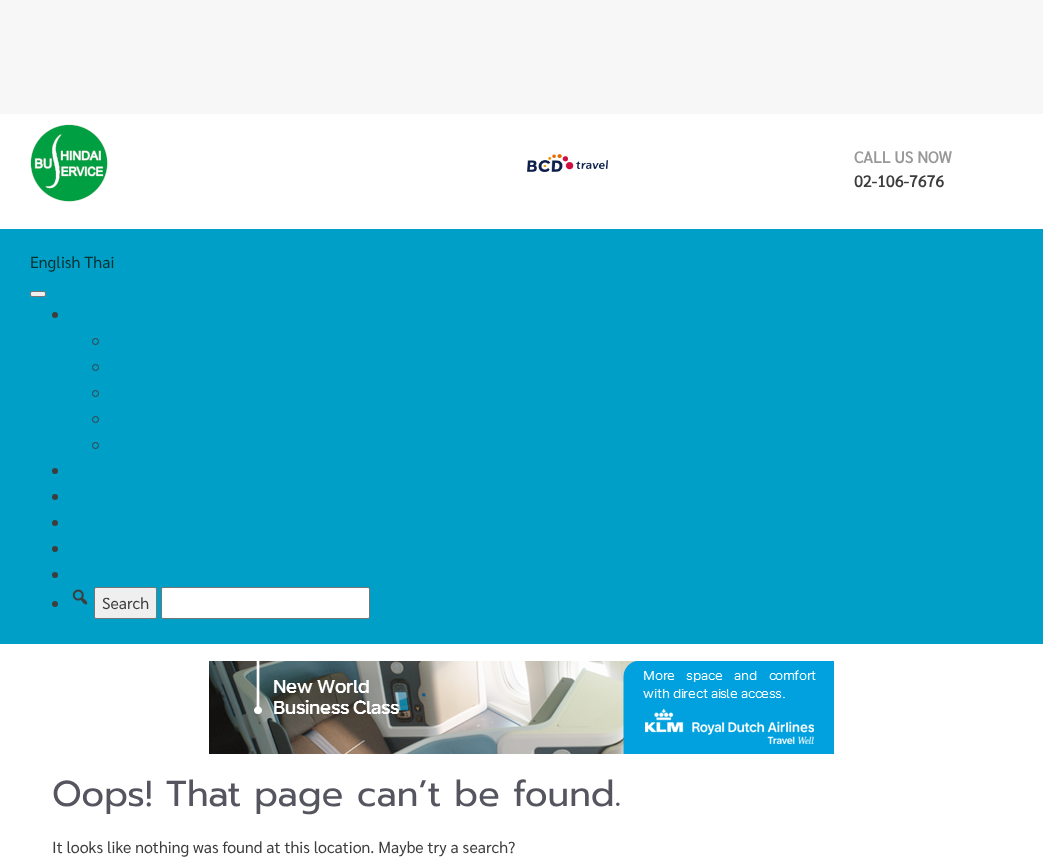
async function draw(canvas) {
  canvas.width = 1043
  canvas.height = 866
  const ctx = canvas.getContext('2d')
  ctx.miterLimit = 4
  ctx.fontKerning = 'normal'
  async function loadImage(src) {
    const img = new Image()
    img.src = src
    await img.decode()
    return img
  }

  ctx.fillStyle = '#fff'
  ctx.fillRect(0, 0, 1043, 866)
  ctx.fillStyle = '#f7f7f7'
  ctx.fillRect(0, 0, 1043, 114)
  ctx.drawImage(await loadImage('image0.png'), 30, 124, 78, 78)
  ctx.drawImage(await loadImage('image1.png'), 527, 154, 81, 18)
  ctx.font = 'bold 16px Sarabun'
  ctx.fillStyle = '#999'
  ctx.fillText('CALL US NOW', 854, 163)
  ctx.fillStyle = '#3e3d3d'
  ctx.fillText('02-106-7676', 854, 187)
  ctx.fillStyle = '#009fc8'
  ctx.fillRect(0, 229, 1043, 415)
  ctx.font = '16px Sarabun'
  ctx.fillStyle = '#073031'
  ctx.fillText('English Thai', 30, 268)
  ctx.fillStyle = '#efefef'
  ctx.beginPath()
  ctx.roundRect(30.5, 291.5, 15, 5, 1.5)
  ctx.fill()
  ctx.strokeStyle = '#767676'
  ctx.stroke()
  ctx.fillStyle = '#3e3d3d'
  ctx.beginPath()
  ctx.arc(55, 315, 3, 0, 2 * Math.PI)
  ctx.fill()
  ctx.beginPath()
  ctx.arc(95.5, 341.5, 3, 0, 2 * Math.PI)
  ctx.strokeStyle = '#3e3d3d'
  ctx.stroke()
  ctx.beginPath()
  ctx.arc(95.5, 367.5, 3, 0, 2 * Math.PI)
  ctx.stroke()
  ctx.beginPath()
  ctx.arc(95.5, 393.5, 3, 0, 2 * Math.PI)
  ctx.stroke()
  ctx.beginPath()
  ctx.arc(95.5, 419.5, 3, 0, 2 * Math.PI)
  ctx.stroke()
  ctx.beginPath()
  ctx.arc(95.5, 445.5, 3, 0, 2 * Math.PI)
  ctx.stroke()
  ctx.beginPath()
  ctx.arc(55, 471, 3, 0, 2 * Math.PI)
  ctx.fill()
  ctx.beginPath()
  ctx.arc(55, 497, 3, 0, 2 * Math.PI)
  ctx.fill()
  ctx.beginPath()
  ctx.arc(55, 523, 3, 0, 2 * Math.PI)
  ctx.fill()
  ctx.beginPath()
  ctx.arc(55, 549, 3, 0, 2 * Math.PI)
  ctx.fill()
  ctx.beginPath()
  ctx.arc(55, 575, 3, 0, 2 * Math.PI)
  ctx.fill()
  ctx.beginPath()
  ctx.arc(55, 604, 3, 0, 2 * Math.PI)
  ctx.fill()
  ctx.drawImage(await loadImage('image2.png'), 72, 589, 16, 16)
  ctx.fillStyle = '#efefef'
  ctx.beginPath()
  ctx.roundRect(94.5, 587.5, 62, 31, 1.5)
  ctx.fill()
  ctx.strokeStyle = '#767676'
  ctx.stroke()
  ctx.fillStyle = '#3e3d3d'
  ctx.fillText('Search', 102, 609)
  ctx.fillStyle = '#fff'
  ctx.beginPath()
  ctx.roundRect(161.5, 587.5, 208, 31, 1.5)
  ctx.fill()
  ctx.stroke()
  ctx.drawImage(await loadImage('image3.png'), 209, 661, 625, 93)
  ctx.font = '36px Prompt'
  ctx.fillStyle = '#55555f'
  ctx.fillText('Oops! That page can’t be found.', 52, 806)
  ctx.font = '16px Sarabun'
  ctx.fillStyle = '#3e3d3d'
  ctx.fillText('It looks like nothing was found at this location. Maybe try a search?', 52, 853)
}

draw(document.querySelector('canvas'))
